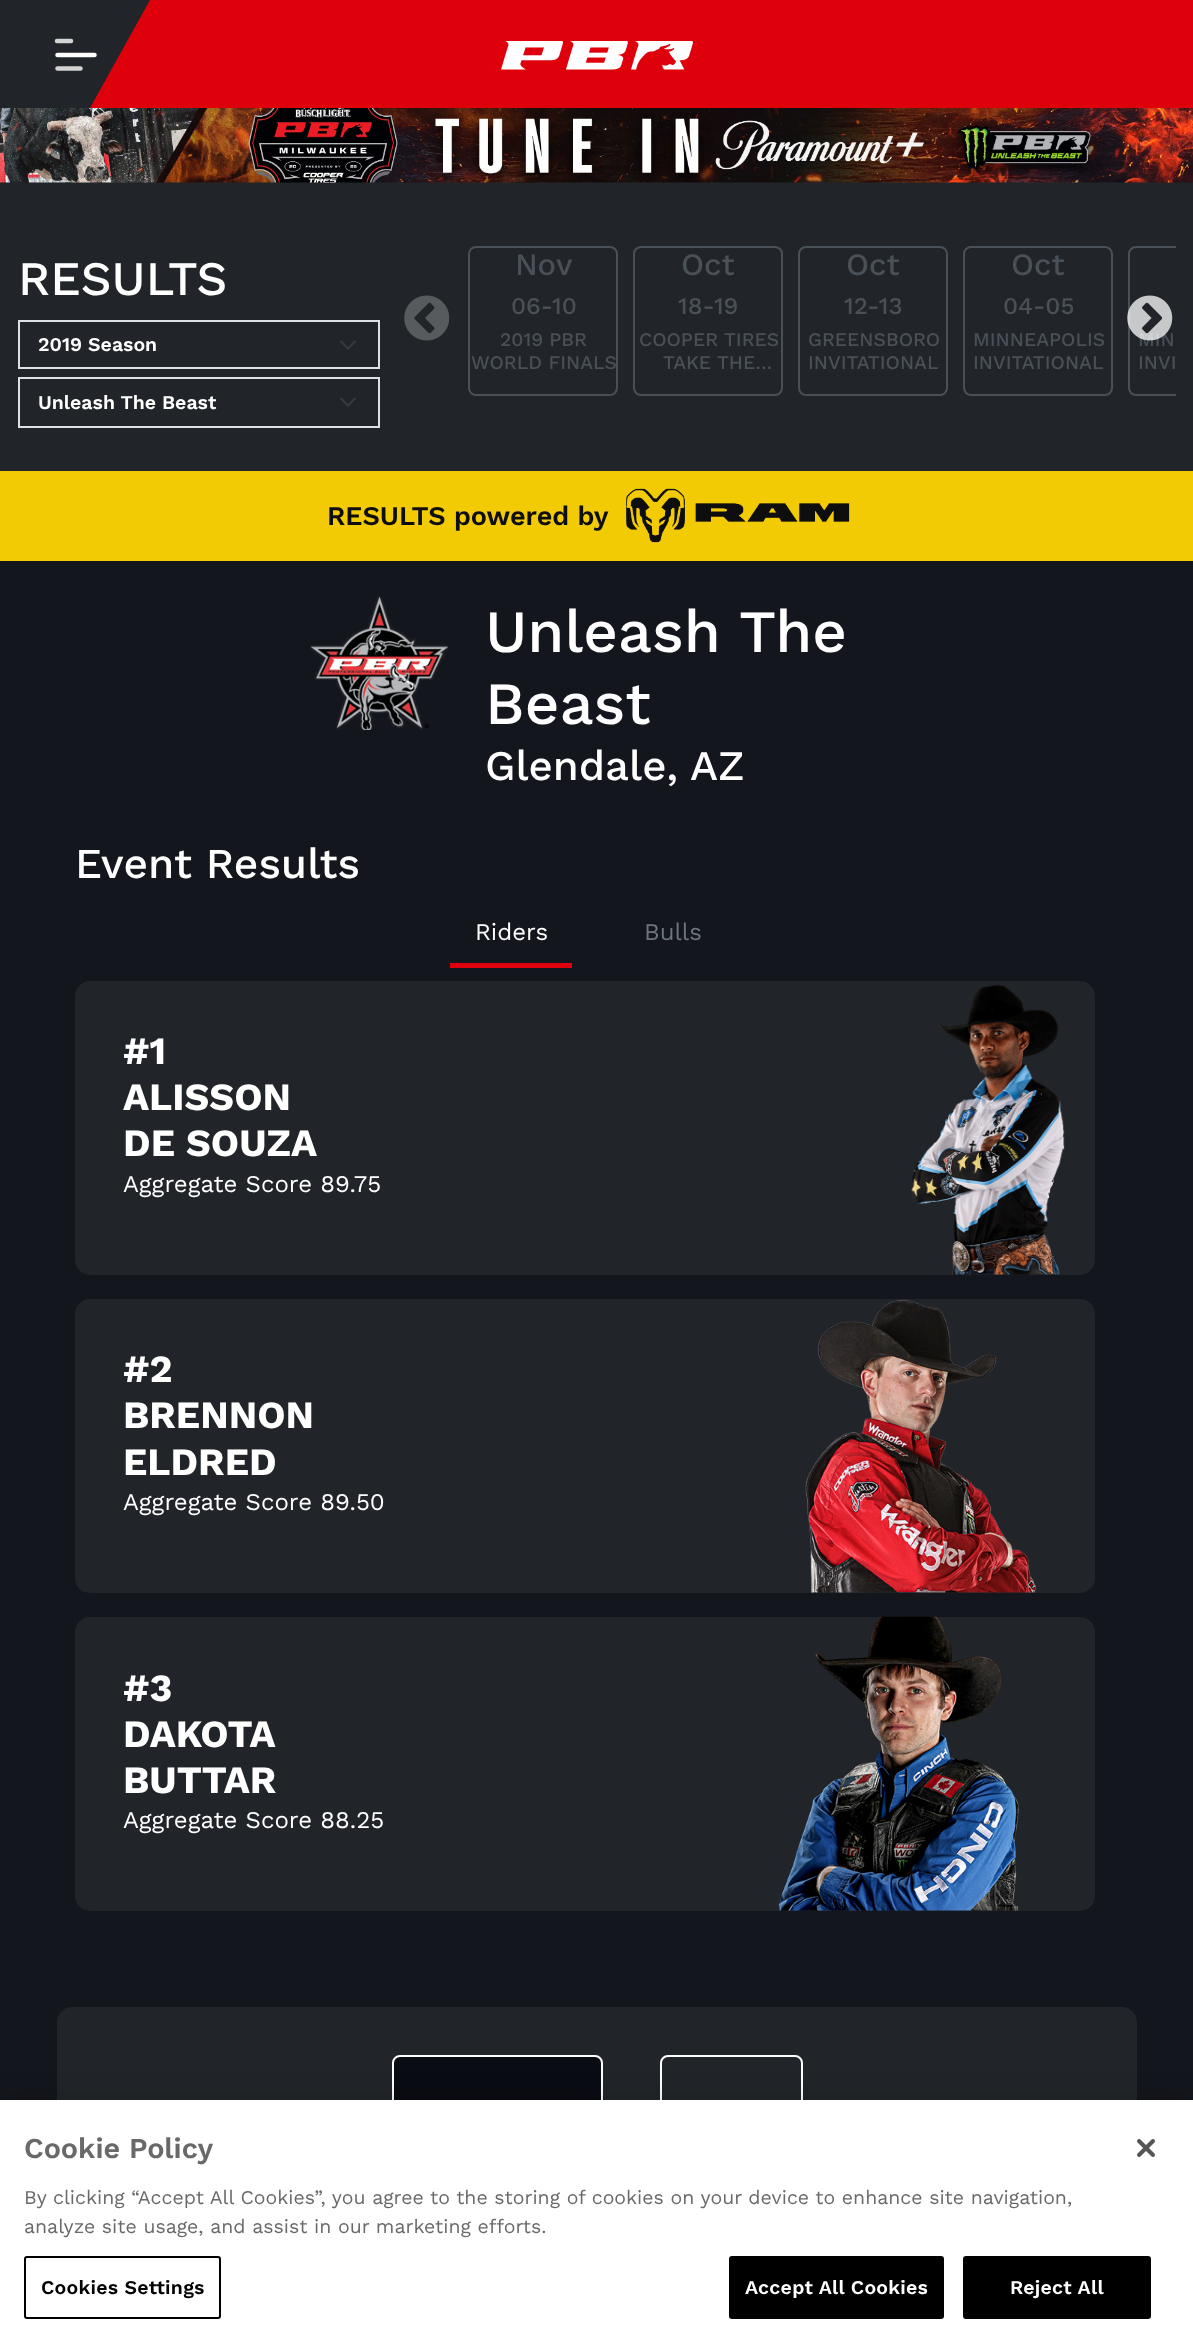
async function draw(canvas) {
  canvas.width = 1193
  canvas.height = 2349
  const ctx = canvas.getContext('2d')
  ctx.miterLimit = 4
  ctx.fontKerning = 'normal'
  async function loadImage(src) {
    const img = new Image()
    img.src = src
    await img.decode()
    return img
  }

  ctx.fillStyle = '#212529'
  ctx.fillRect(0, 0, 1193, 2349)
  ctx.fillStyle = '#de000a'
  ctx.fillRect(90, 0, 1103, 108)
  ctx.fillStyle = '#212529'
  ctx.beginPath()
  ctx.moveTo(0, 0)
  ctx.lineTo(0, 108)
  ctx.lineTo(90, 108)
  ctx.lineTo(150, 0)
  ctx.closePath()
  ctx.fill()
  ctx.beginPath()
  ctx.moveTo(57, 41)
  ctx.lineTo(71, 41)
  ctx.strokeStyle = '#d3d3d4'
  ctx.lineWidth = 4.5
  ctx.lineCap = 'round'
  ctx.lineJoin = 'round'
  ctx.stroke()
  ctx.beginPath()
  ctx.moveTo(57.5, 55)
  ctx.lineTo(94.5, 55)
  ctx.strokeStyle = '#fff'
  ctx.stroke()
  ctx.beginPath()
  ctx.moveTo(57.5, 68.5)
  ctx.lineTo(80.5, 68.5)
  ctx.strokeStyle = '#d3d3d4'
  ctx.stroke()
  ctx.drawImage(await loadImage('image0.png'), 501, 41, 192, 29)
  ctx.drawImage(await loadImage('image1.png'), 0, 108, 1193, 75)
  ctx.font = '500 48px Work Sans'
  ctx.fillStyle = '#fff'
  ctx.fillText('RESULTS', 18, 295)
  ctx.beginPath()
  ctx.moveTo(341, 341.5)
  ctx.lineTo(348, 348.5)
  ctx.lineTo(355, 341.5)
  ctx.strokeStyle = '#343a40'
  ctx.lineWidth = 2.2
  ctx.stroke()
  ctx.strokeStyle = '#dee2e6'
  ctx.lineWidth = 2
  ctx.lineJoin = 'miter'
  ctx.strokeRect(19, 321, 360, 47)
  ctx.font = '600 19.5px Work Sans'
  ctx.fillText('2019 Season', 38, 351)
  ctx.beginPath()
  ctx.moveTo(341, 398.5)
  ctx.lineTo(348, 405.5)
  ctx.lineTo(355, 398.5)
  ctx.strokeStyle = '#343a40'
  ctx.lineWidth = 2.2
  ctx.lineJoin = 'round'
  ctx.stroke()
  ctx.strokeStyle = '#dee2e6'
  ctx.lineWidth = 2
  ctx.lineJoin = 'miter'
  ctx.strokeRect(19, 378, 360, 49)
  ctx.fillText('Unleash The Beast', 38, 409)
  ctx.drawImage(await loadImage('image2.png'), 404, 295, 46, 46)
  ctx.beginPath()
  ctx.roundRect(469, 247, 148, 148, 7)
  ctx.strokeStyle = '#495057'
  ctx.stroke()
  ctx.font = '500 31px Work Sans'
  ctx.fillStyle = '#495057'
  ctx.fillText('Nov', 515, 275)
  ctx.font = '500 24px Work Sans'
  ctx.fillText('06-10', 511, 314)
  ctx.font = '500 19.25px Work Sans'
  ctx.fillText('2019 PBR', 500, 346)
  ctx.fillText('WORLD FINALS', 471, 369)
  ctx.beginPath()
  ctx.roundRect(634, 247, 148, 148, 7)
  ctx.stroke()
  ctx.font = '500 31px Work Sans'
  ctx.fillText('Oct', 681, 275)
  ctx.font = '500 24px Work Sans'
  ctx.fillText('18-19', 678, 314)
  ctx.font = '500 19.25px Work Sans'
  ctx.fillText('COOPER TIRES', 639, 346)
  ctx.fillText('TAKE THE…', 663, 369)
  ctx.beginPath()
  ctx.roundRect(799, 247, 148, 148, 7)
  ctx.stroke()
  ctx.font = '500 31px Work Sans'
  ctx.fillText('Oct', 846, 275)
  ctx.font = '500 24px Work Sans'
  ctx.fillText('12-13', 844, 314)
  ctx.font = '500 19.25px Work Sans'
  ctx.fillText('GREENSBORO', 808, 346)
  ctx.fillText('INVITATIONAL', 808, 369)
  ctx.beginPath()
  ctx.roundRect(964, 247, 148, 148, 7)
  ctx.stroke()
  ctx.font = '500 31px Work Sans'
  ctx.fillText('Oct', 1011, 275)
  ctx.font = '500 24px Work Sans'
  ctx.fillText('04-05', 1003, 314)
  ctx.font = '500 19.25px Work Sans'
  ctx.fillText('MINNEAPOLIS', 973, 346)
  ctx.fillText('INVITATIONAL', 973, 369)
  ctx.save()
  ctx.beginPath()
  ctx.rect(461, 239, 715, 165)
  ctx.clip()
  ctx.beginPath()
  ctx.roundRect(1129, 247, 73, 148, 7)
  ctx.stroke()
  ctx.restore()
  ctx.fillText('MIN', 1138, 346)
  ctx.fillText('INVI', 1138, 369)
  ctx.drawImage(await loadImage('image3.png'), 1127, 295, 46, 46)
  ctx.fillStyle = '#f2cb05'
  ctx.fillRect(0, 471, 1193, 90)
  ctx.font = '600 27px Work Sans'
  ctx.fillStyle = '#0e0e0e'
  ctx.fillText('RESULTS powered by', 327, 525)
  ctx.drawImage(await loadImage('image4.png'), 626, 488, 224, 55)
  ctx.fillStyle = '#14161d'
  ctx.fillRect(0, 561, 1193, 1539)
  ctx.drawImage(await loadImage('image5.png'), 310, 596, 139, 134)
  ctx.font = '500 60px Work Sans'
  ctx.fillStyle = '#fff'
  ctx.fillText('Unleash The', 485, 652)
  ctx.fillText('Beast', 485, 724)
  ctx.font = '500 42px Work Sans'
  ctx.fillText('Glendale, AZ', 485, 780)
  ctx.font = '500 42.5px Work Sans'
  ctx.fillText('Event Results', 75, 878)
  ctx.fillStyle = '#de000a'
  ctx.fillRect(450, 963, 122, 5)
  ctx.font = '24px Work Sans'
  ctx.fillStyle = '#fff'
  ctx.fillText('Riders', 475, 940)
  ctx.fillStyle = '#6c757d'
  ctx.fillText('Bulls', 644, 940)
  ctx.fillStyle = '#212529'
  ctx.beginPath()
  ctx.roundRect(75, 981, 1020, 294, 15)
  ctx.fill()
  ctx.font = 'bold 38.5px Work Sans'
  ctx.fillStyle = '#fff'
  ctx.fillText('#1', 123, 1064)
  ctx.fillText('ALISSON', 123, 1110)
  ctx.fillText('DE SOUZA', 123, 1156)
  ctx.font = '24px Work Sans'
  ctx.fillText('Aggregate Score 89.75', 123, 1192)
  ctx.drawImage(await loadImage('image6.png'), 911, 985, 154, 290)
  ctx.fillStyle = '#212529'
  ctx.beginPath()
  ctx.roundRect(75, 1299, 1020, 294, 15)
  ctx.fill()
  ctx.font = 'bold 38.5px Work Sans'
  ctx.fillStyle = '#fff'
  ctx.fillText('#2', 123, 1382)
  ctx.fillText('BRENNON', 123, 1428)
  ctx.fillText('ELDRED', 123, 1475)
  ctx.font = '24px Work Sans'
  ctx.fillText('Aggregate Score 89.50', 123, 1510)
  ctx.drawImage(await loadImage('image7.png'), 805, 1299, 232, 294)
  ctx.fillStyle = '#212529'
  ctx.beginPath()
  ctx.roundRect(75, 1617, 1020, 294, 15)
  ctx.fill()
  ctx.font = 'bold 38.5px Work Sans'
  ctx.fillStyle = '#fff'
  ctx.fillText('#3', 123, 1701)
  ctx.fillText('DAKOTA', 123, 1747)
  ctx.fillText('BUTTAR', 123, 1793)
  ctx.font = '24px Work Sans'
  ctx.fillText('Aggregate Score 88.25', 123, 1828)
  ctx.drawImage(await loadImage('image8.png'), 778, 1616, 242, 295)
  ctx.fillStyle = '#212529'
  ctx.beginPath()
  ctx.roundRect(57, 2007, 1080, 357, 15)
  ctx.fill()
  ctx.fillStyle = '#0a0c13'
  ctx.beginPath()
  ctx.roundRect(393, 2056, 209, 85, 7)
  ctx.fill()
  ctx.strokeStyle = '#fff'
  ctx.stroke()
  ctx.beginPath()
  ctx.roundRect(661, 2056, 141, 85, 7)
  ctx.stroke()
  ctx.fillStyle = '#00000033'
  ctx.filter = 'blur(13.5px)'
  ctx.beginPath()
  ctx.rect(0, 2100, 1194, 249)
  ctx.fill()
  ctx.filter = 'none'
  ctx.fillStyle = '#fff'
  ctx.fillRect(0, 2100, 1193, 249)
  ctx.font = '600 28.75px Work Sans'
  ctx.fillStyle = '#696969'
  ctx.fillText('Cookie Policy', 24, 2158)
  ctx.font = '19.5px Work Sans'
  ctx.fillText('By clicking “Accept All Cookies”, you agree to the storing of cookies on your device to enhance site navigation,', 24, 2204)
  ctx.fillText('analyze site usage, and assist in our marketing efforts.', 24, 2233)
  ctx.beginPath()
  ctx.roundRect(25, 2257, 195, 61, 2)
  ctx.strokeStyle = '#000'
  ctx.stroke()
  ctx.letterSpacing = '0.25px'
  ctx.font = '600 19.5px Work Sans'
  ctx.fillStyle = '#000'
  ctx.fillText('Cookies Settings', 41, 2294)
  ctx.beginPath()
  ctx.roundRect(730, 2257, 213, 61, 2)
  ctx.fill()
  ctx.stroke()
  ctx.fillStyle = '#fff'
  ctx.fillText('Accept All Cookies', 745, 2294)
  ctx.fillStyle = '#000'
  ctx.beginPath()
  ctx.roundRect(964, 2257, 186, 61, 2)
  ctx.fill()
  ctx.stroke()
  ctx.fillStyle = '#fff'
  ctx.fillText('Reject All', 1010, 2294)
  ctx.drawImage(await loadImage('image9.png'), 1137, 2139, 18, 18)
}

draw(document.querySelector('canvas'))
